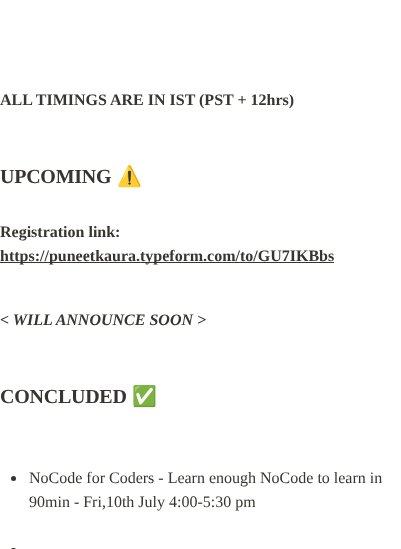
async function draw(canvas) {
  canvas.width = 401
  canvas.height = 549
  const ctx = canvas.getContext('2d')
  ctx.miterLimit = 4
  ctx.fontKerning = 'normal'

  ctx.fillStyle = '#fff'
  ctx.fillRect(0, 0, 401, 549)
  ctx.font = 'bold 16px Liberation Serif'
  ctx.fillStyle = '#37352f'
  ctx.fillText('ALL TIMINGS ARE IN IST (PST + 12hrs)', 0, 105)
  ctx.letterSpacing = '-0.25px'
  ctx.font = 'bold 20px Liberation Serif'
  ctx.fillText('UPCOMING', 0, 183)
  ctx.font = 'bold 20px Noto Color Emoji'
  ctx.fillText('⚠️', 117, 183)
  ctx.letterSpacing = '0px'
  ctx.font = 'bold 16px Liberation Serif'
  ctx.fillText('Registration link:', 0, 237)
  ctx.fillRect(0, 262, 334, 1)
  ctx.fillText('https://puneetkaura.typeform.com/to/GU7IKBbs', 0, 261)
  ctx.font = 'italic bold 16px Liberation Serif'
  ctx.fillText('< WILL ANNOUNCE SOON >', 0, 325)
  ctx.letterSpacing = '-0.25px'
  ctx.font = 'bold 20px Liberation Serif'
  ctx.fillText('CONCLUDED', 0, 403)
  ctx.font = 'bold 20px Noto Color Emoji'
  ctx.fillText('✅', 132, 403)
  ctx.beginPath()
  ctx.arc(13.5, 478.5, 2.5, 0, 2 * Math.PI)
  ctx.fill()
  ctx.letterSpacing = '0px'
  ctx.font = '16px Liberation Serif'
  ctx.fillText('NoCode for Coders - Learn enough NoCode to learn in', 29, 483)
  ctx.fillText('90min - Fri,10th July 4:00-5:30 pm', 29, 507)
  ctx.beginPath()
  ctx.roundRect(11, 548, 5, 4, 2.5)
  ctx.fill()
}

draw(document.querySelector('canvas'))
